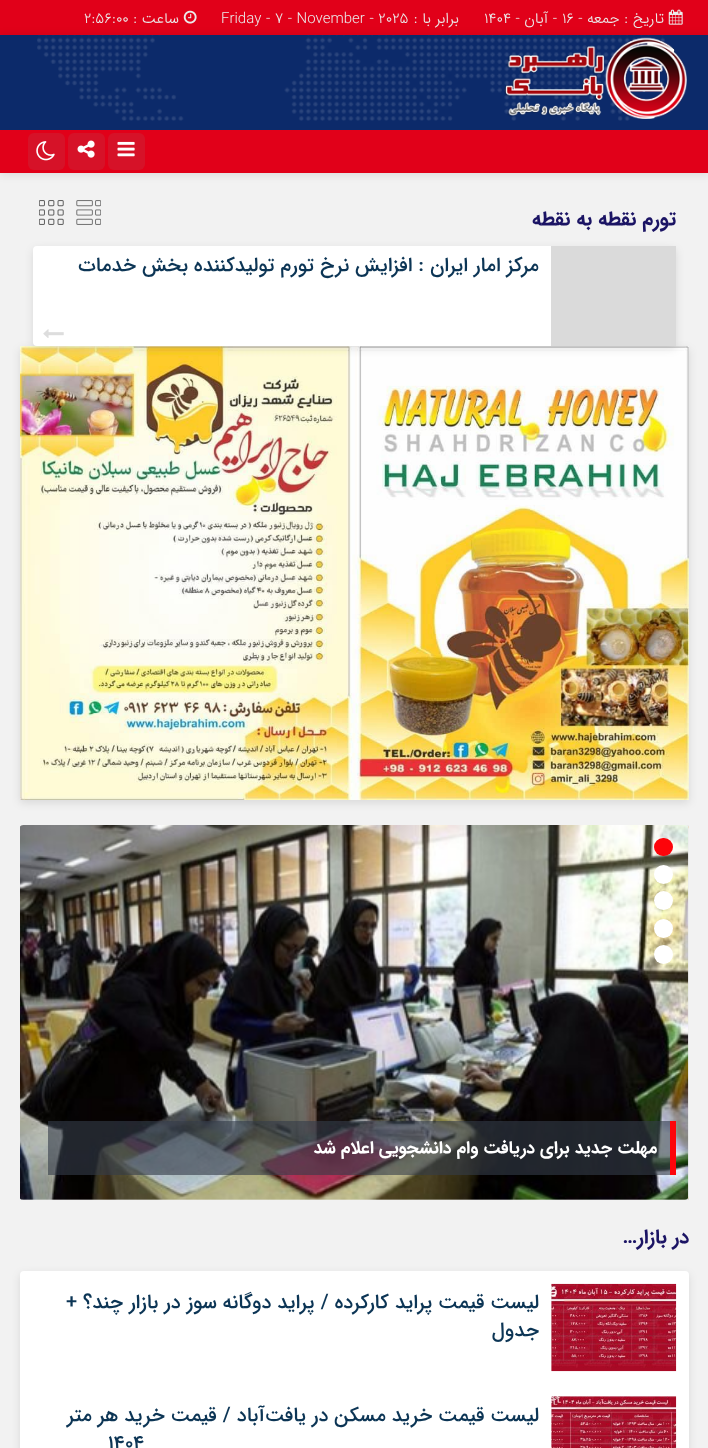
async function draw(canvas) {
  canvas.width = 708
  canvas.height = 1448
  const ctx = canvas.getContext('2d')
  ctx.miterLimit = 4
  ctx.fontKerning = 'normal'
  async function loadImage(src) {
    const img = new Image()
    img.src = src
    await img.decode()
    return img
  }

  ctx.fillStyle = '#f2f2f2'
  ctx.fillRect(0, 0, 708, 1448)
  ctx.fillStyle = '#e10019'
  ctx.fillRect(0, 0, 708, 35)
  ctx.drawImage(await loadImage('image0.png'), 668, 9, 15, 16)
  ctx.direction = 'rtl'
  ctx.font = '300 15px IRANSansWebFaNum'
  ctx.fillStyle = '#ebebeb'
  ctx.fillText('تاریخ : جمعه -', 664, 23)
  ctx.direction = 'ltr'
  ctx.fillText('۱۶', 562, 23)
  ctx.direction = 'rtl'
  ctx.fillText('- آبان -', 557, 23)
  ctx.direction = 'ltr'
  ctx.fillText('۱۴۰۴', 484, 23)
  ctx.direction = 'rtl'
  ctx.fillText('برابر با :', 459, 23)
  ctx.direction = 'ltr'
  ctx.fillText('Friday - 7 - November - 2025', 221, 23)
  ctx.drawImage(await loadImage('image1.png'), 183, 10, 14, 14)
  ctx.direction = 'rtl'
  ctx.fillText('ساعت :', 179, 23)
  ctx.direction = 'ltr'
  ctx.fillText('2:56:00', 84, 23)
  ctx.fillStyle = '#0000001a'
  ctx.filter = 'blur(5px)'
  ctx.beginPath()
  ctx.rect(0, 36, 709, 138)
  ctx.fill()
  ctx.filter = 'none'
  ctx.fillStyle = '#0c2a6a'
  ctx.fillRect(0, 35, 708, 95)
  ctx.drawImage(await loadImage('image2.png'), 37, 35, 628, 86)
  ctx.drawImage(await loadImage('image3.png'), 504, 37, 183, 82)
  ctx.fillStyle = '#e10019'
  ctx.fillRect(0, 130, 708, 43)
  ctx.fillStyle = '#d61228'
  ctx.beginPath()
  ctx.roundRect(108, 133, 37, 37, 6)
  ctx.fill()
  ctx.drawImage(await loadImage('image4.png'), 117, 141, 18, 16)
  ctx.beginPath()
  ctx.roundRect(68, 133, 37, 37, 6)
  ctx.fill()
  ctx.drawImage(await loadImage('image5.png'), 77, 140, 18, 18)
  ctx.beginPath()
  ctx.roundRect(28, 133, 37, 37, 6)
  ctx.fill()
  ctx.drawImage(await loadImage('image6.png'), 36, 141, 19, 20)
  ctx.direction = 'rtl'
  ctx.font = 'bold 20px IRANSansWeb'
  ctx.fillStyle = '#1b1464'
  ctx.fillText('تورم نقطه به نقطه', 676, 225)
  ctx.drawImage(await loadImage('image7.png'), 76, 200, 25, 25)
  ctx.drawImage(await loadImage('image8.png'), 39, 200, 25, 25)
  ctx.fillStyle = '#0000001a'
  ctx.filter = 'blur(4px)'
  ctx.beginPath()
  ctx.rect(20, 349, 669, 454)
  ctx.fill()
  ctx.filter = 'none'
  ctx.drawImage(await loadImage('image10.png'), 20, 346, 669, 454)
  ctx.filter = 'blur(4px)'
  ctx.beginPath()
  ctx.roundRect(33, 249, 643, 100, 4)
  ctx.fill()
  ctx.filter = 'none'
  ctx.fillStyle = '#fff'
  ctx.beginPath()
  ctx.roundRect(33, 246, 643, 100, 4)
  ctx.fill()
  ctx.fillStyle = '#dadada'
  ctx.fillRect(551, 246, 125, 100)
  ctx.font = '500 20px IRANSansWebFaNum'
  ctx.fillStyle = '#0c3555'
  ctx.fillText('مرکز امار ایران : افزایش نرخ تورم تولیدکننده بخش خدمات', 539, 271)
  ctx.drawImage(await loadImage('image9.png'), 43, 329, 21, 9)
  ctx.save()
  ctx.beginPath()
  ctx.rect(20, 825, 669, 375)
  ctx.clip()
  ctx.fillStyle = '#0000001a'
  ctx.filter = 'blur(4px)'
  ctx.beginPath()
  ctx.roundRect(689, 828, 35, 375, 4)
  ctx.fill()
  ctx.filter = 'none'
  ctx.restore()
  ctx.drawImage(await loadImage('image11.png'), 688, 826, 1, 373)
  ctx.save()
  ctx.beginPath()
  ctx.rect(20, 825, 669, 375)
  ctx.clip()
  ctx.fillStyle = '#0000001a'
  ctx.filter = 'blur(4px)'
  ctx.beginPath()
  ctx.roundRect(20, 828, 669, 375, 4)
  ctx.fill()
  ctx.filter = 'none'
  ctx.restore()
  ctx.fillStyle = '#eee'
  ctx.beginPath()
  ctx.roundRect(20, 825, 669, 375, 4)
  ctx.fill()
  ctx.drawImage(await loadImage('image12.png'), 20, 825, 669, 375)
  ctx.fillStyle = '#fd040a'
  ctx.beginPath()
  ctx.roundRect(654, 838, 19, 18, 9)
  ctx.fill()
  ctx.fillStyle = '#fff'
  ctx.beginPath()
  ctx.arc(663.5, 874.5, 9.5, 0, 2 * Math.PI)
  ctx.fill()
  ctx.beginPath()
  ctx.arc(663.5, 900.5, 9.5, 0, 2 * Math.PI)
  ctx.fill()
  ctx.beginPath()
  ctx.arc(663.5, 928.5, 9.5, 0, 2 * Math.PI)
  ctx.fill()
  ctx.beginPath()
  ctx.arc(663.5, 954.5, 9.5, 0, 2 * Math.PI)
  ctx.fill()
  ctx.fillStyle = '#353c499c'
  ctx.fillRect(48, 1121, 622, 54)
  ctx.fillStyle = '#fd040a'
  ctx.fillRect(670, 1121, 6, 54)
  ctx.font = 'bold 17.5px IRANSansWeb'
  ctx.fillStyle = '#fff'
  ctx.fillText('مهلت جدید برای دریافت وام دانشجویی اعلام شد', 657, 1153)
  ctx.font = 'bold 20px IRANSansWeb'
  ctx.fillStyle = '#1b1464'
  ctx.fillText('در بازار…', 689, 1243)
  ctx.fillStyle = '#0000001a'
  ctx.filter = 'blur(4px)'
  ctx.beginPath()
  ctx.roundRect(20, 1274, 669, 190, 4)
  ctx.fill()
  ctx.filter = 'none'
  ctx.fillStyle = '#fff'
  ctx.beginPath()
  ctx.roundRect(20, 1271, 669, 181, 4)
  ctx.fill()
  ctx.fillStyle = '#eee'
  ctx.fillRect(551, 1284, 1, 87)
  ctx.drawImage(await loadImage('image13.png'), 551, 1283, 126, 89)
  ctx.font = '500 20px IRANSansWebFaNum'
  ctx.fillStyle = '#0c3555'
  ctx.fillText('لیست قیمت پراید کارکرده / پراید دوگانه سوز در بازار چند؟ +', 539, 1308)
  ctx.fillText('جدول', 539, 1336)
  ctx.fillStyle = '#eee'
  ctx.fillRect(551, 1396, 125, 52)
  ctx.drawImage(await loadImage('image14.png'), 551, 1396, 126, 52)
  ctx.fillStyle = '#0c3555'
  ctx.fillText('لیست قیمت خرید مسکن در یافت‌‌آباد / قیمت خرید هر متر', 539, 1421)
  ctx.direction = 'ltr'
  ctx.fillText('۱۴۰۴', 108, 1449)
}

draw(document.querySelector('canvas'))
